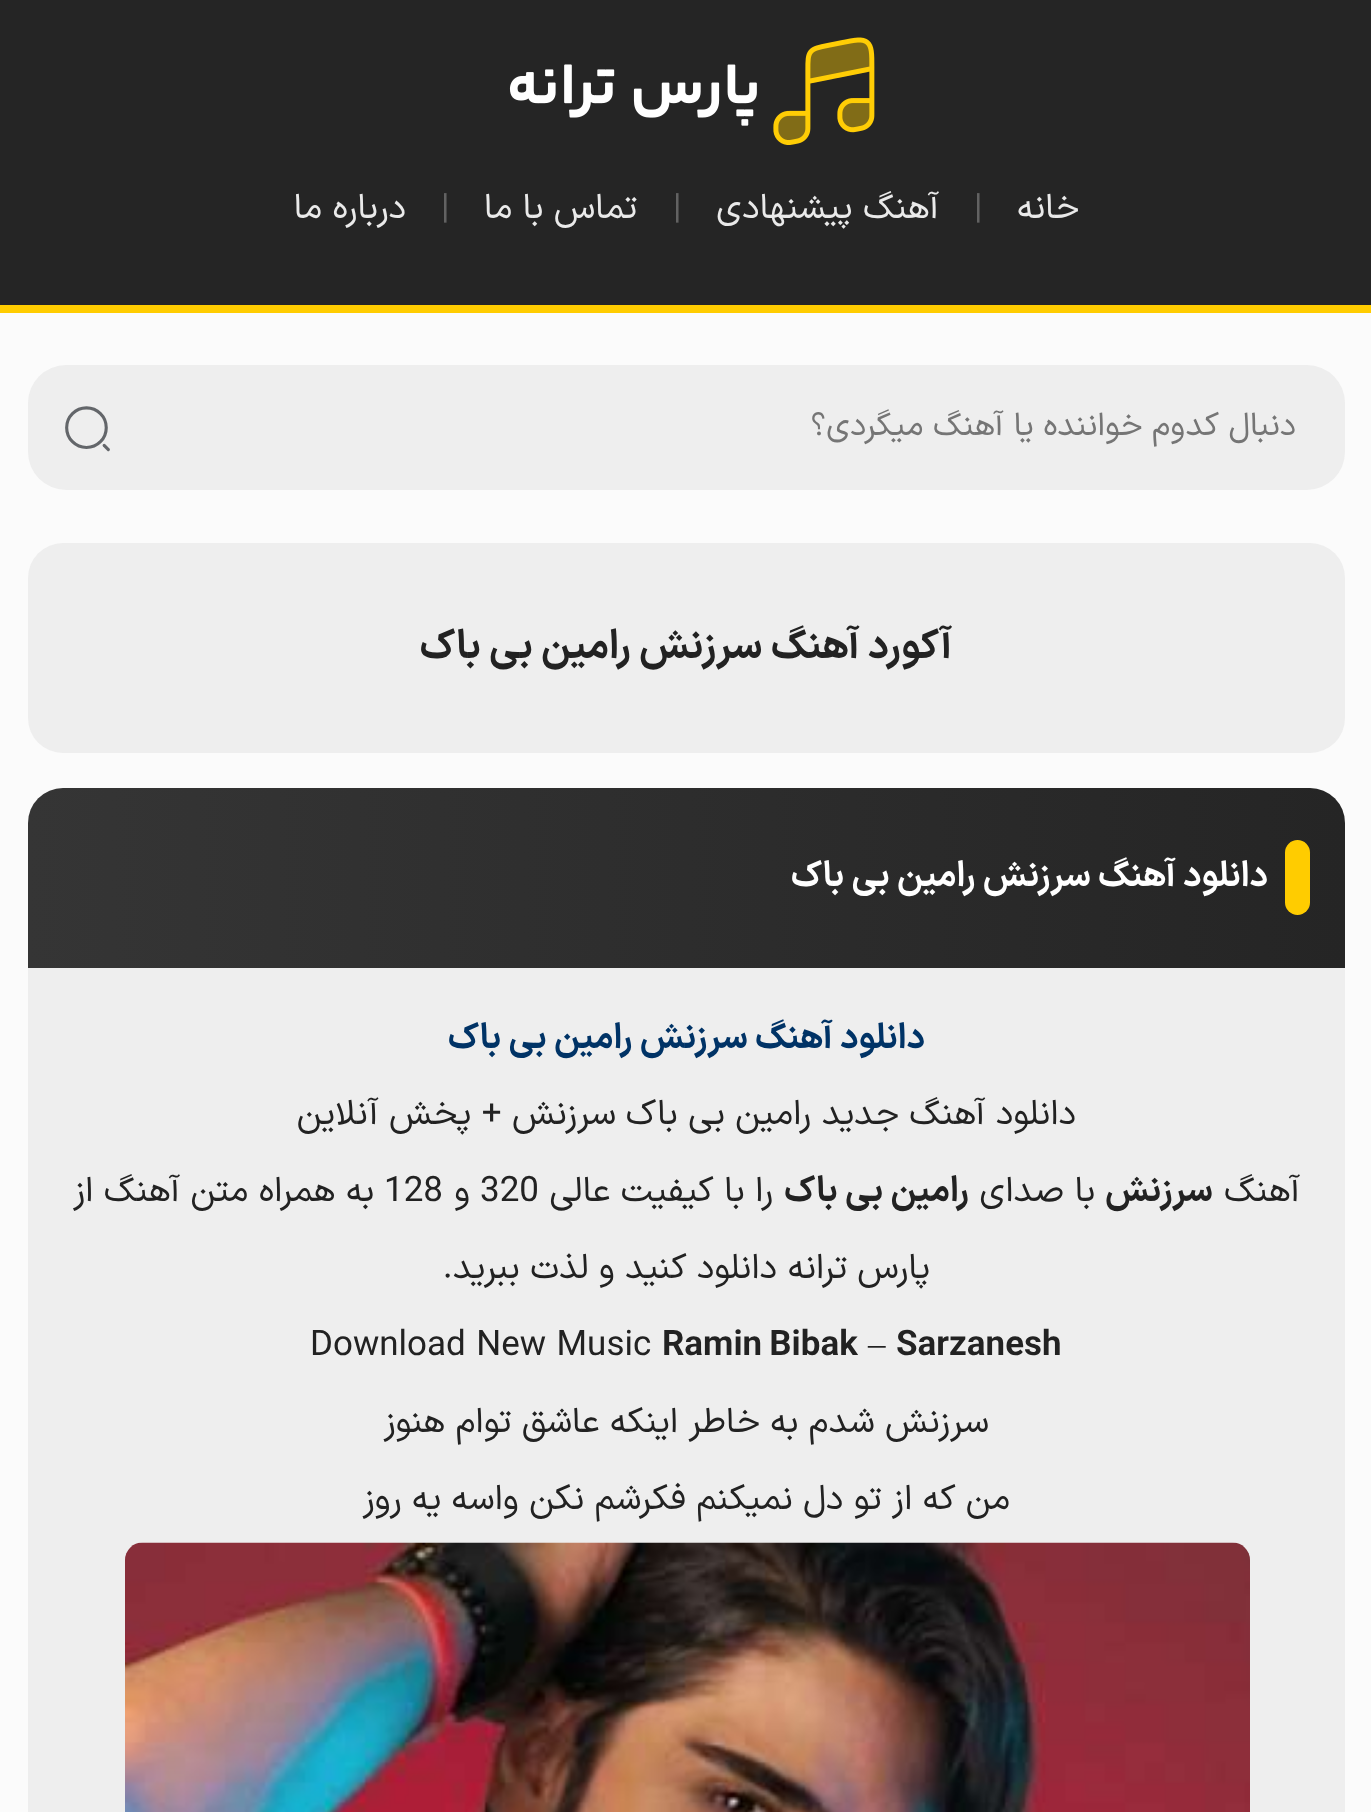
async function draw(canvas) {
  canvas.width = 1371
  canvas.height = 1812
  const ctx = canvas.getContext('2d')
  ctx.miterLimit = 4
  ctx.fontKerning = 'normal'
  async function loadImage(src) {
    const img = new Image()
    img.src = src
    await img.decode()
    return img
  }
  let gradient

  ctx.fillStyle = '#fbfbfb'
  ctx.fillRect(0, 0, 1371, 1812)
  ctx.fillStyle = '#252525'
  ctx.fillRect(0, 0, 1371, 305)
  ctx.fillStyle = '#fc0'
  ctx.fillRect(0, 305, 1371, 8)
  ctx.drawImage(await loadImage('image0.png'), 509, 37, 366, 108)
  ctx.direction = 'rtl'
  ctx.font = '35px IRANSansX'
  ctx.fillStyle = '#eaeaea'
  ctx.fillText('خانه', 1079, 218)
  ctx.direction = 'ltr'
  ctx.fillStyle = '#626262'
  ctx.fillText('|', 974, 218)
  ctx.direction = 'rtl'
  ctx.fillStyle = '#eaeaea'
  ctx.fillText('آهنگ پیشنهادی', 939, 218)
  ctx.direction = 'ltr'
  ctx.fillStyle = '#626262'
  ctx.fillText('|', 673, 218)
  ctx.direction = 'rtl'
  ctx.fillStyle = '#eaeaea'
  ctx.fillText('تماس با ما', 637, 218)
  ctx.direction = 'ltr'
  ctx.fillStyle = '#626262'
  ctx.fillText('|', 441, 218)
  ctx.direction = 'rtl'
  ctx.fillStyle = '#eaeaea'
  ctx.fillText('درباره ما', 406, 218)
  ctx.fillStyle = '#eee'
  ctx.beginPath()
  ctx.roundRect(28, 365, 1317, 125, 38)
  ctx.fill()
  ctx.font = '32.5px IRANSansX'
  ctx.fillStyle = '#757575'
  ctx.fillText('دنبال کدوم خواننده یا آهنگ میگردی؟', 1296, 435)
  ctx.drawImage(await loadImage('image1.png'), 65, 406, 45, 46)
  ctx.fillStyle = '#eee'
  ctx.beginPath()
  ctx.roundRect(28, 543, 1317, 210, 35)
  ctx.fill()
  ctx.font = 'bold 40px IRANSansX'
  ctx.fillStyle = '#222'
  ctx.fillText('آکورد آهنگ سرزنش رامین بی باک', 952, 658)
  ctx.fillStyle = '#eee'
  ctx.beginPath()
  ctx.roundRect(28, 788, 1317, 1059, 35)
  ctx.fill()
  gradient = ctx.createLinearGradient(1345, 877, 28, 878)
  gradient.addColorStop(0, '#252525')
  gradient.addColorStop(1, '#353535')
  ctx.fillStyle = gradient
  ctx.beginPath()
  ctx.roundRect(28, 788, 1317, 180, [35, 35, 0, 0])
  ctx.fill()
  ctx.fillStyle = '#fc0'
  ctx.beginPath()
  ctx.roundRect(1285, 840, 25, 75, 12.5)
  ctx.fill()
  ctx.font = 'bold 35px IRANSansX'
  ctx.fillStyle = '#fff'
  ctx.fillText('دانلود آهنگ سرزنش رامین بی باک', 1268, 886)
  ctx.fillStyle = '#036'
  ctx.fillText('دانلود آهنگ سرزنش رامین بی باک', 925, 1048)
  ctx.font = '35px IRANSansX'
  ctx.fillStyle = '#222'
  ctx.fillText('دانلود آهنگ جدید', 1076, 1124)
  ctx.fillText('رامین بی باک', 811, 1124)
  ctx.fillText('سرزنش + پخش آنلاین', 616, 1124)
  ctx.fillText('آهنگ', 1300, 1201)
  ctx.font = 'bold 35px IRANSansX'
  ctx.fillText('سرزنش', 1213, 1201)
  ctx.font = '35px IRANSansX'
  ctx.fillText('با صدای', 1095, 1201)
  ctx.font = 'bold 35px IRANSansX'
  ctx.fillText('رامین بی باک', 969, 1201)
  ctx.font = '35px IRANSansX'
  ctx.fillText('را با کیفیت عالی', 773, 1201)
  ctx.direction = 'ltr'
  ctx.fillText('320', 480, 1201)
  ctx.direction = 'rtl'
  ctx.fillText('و', 470, 1201)
  ctx.direction = 'ltr'
  ctx.fillText('128', 384, 1201)
  ctx.direction = 'rtl'
  ctx.fillText('به همراه متن آهنگ از', 374, 1201)
  ctx.fillText('پارس ترانه', 930, 1278)
  ctx.fillText('دانلود کنید و لذت ببرید.', 777, 1278)
  ctx.direction = 'ltr'
  ctx.font = 'bold 35px IRANSansX'
  ctx.fillText('Sarzanesh', 896, 1355)
  ctx.font = '35px Liberation Serif'
  ctx.fillText('–', 868, 1355)
  ctx.font = 'bold 35px IRANSansX'
  ctx.fillText('Ramin Bibak', 662, 1355)
  ctx.font = '35px IRANSansX'
  ctx.fillText('Download New Music', 310, 1355)
  ctx.direction = 'rtl'
  ctx.fillText('سرزنش شدم به خاطر اینکه عاشق توام هنوز', 989, 1432)
  ctx.fillText('من که از تو دل نمیکنم فکرشم نکن واسه یه روز', 1010, 1509)
  ctx.drawImage(await loadImage('image2.png'), 125, 1542, 1125, 270)
}

draw(document.querySelector('canvas'))
